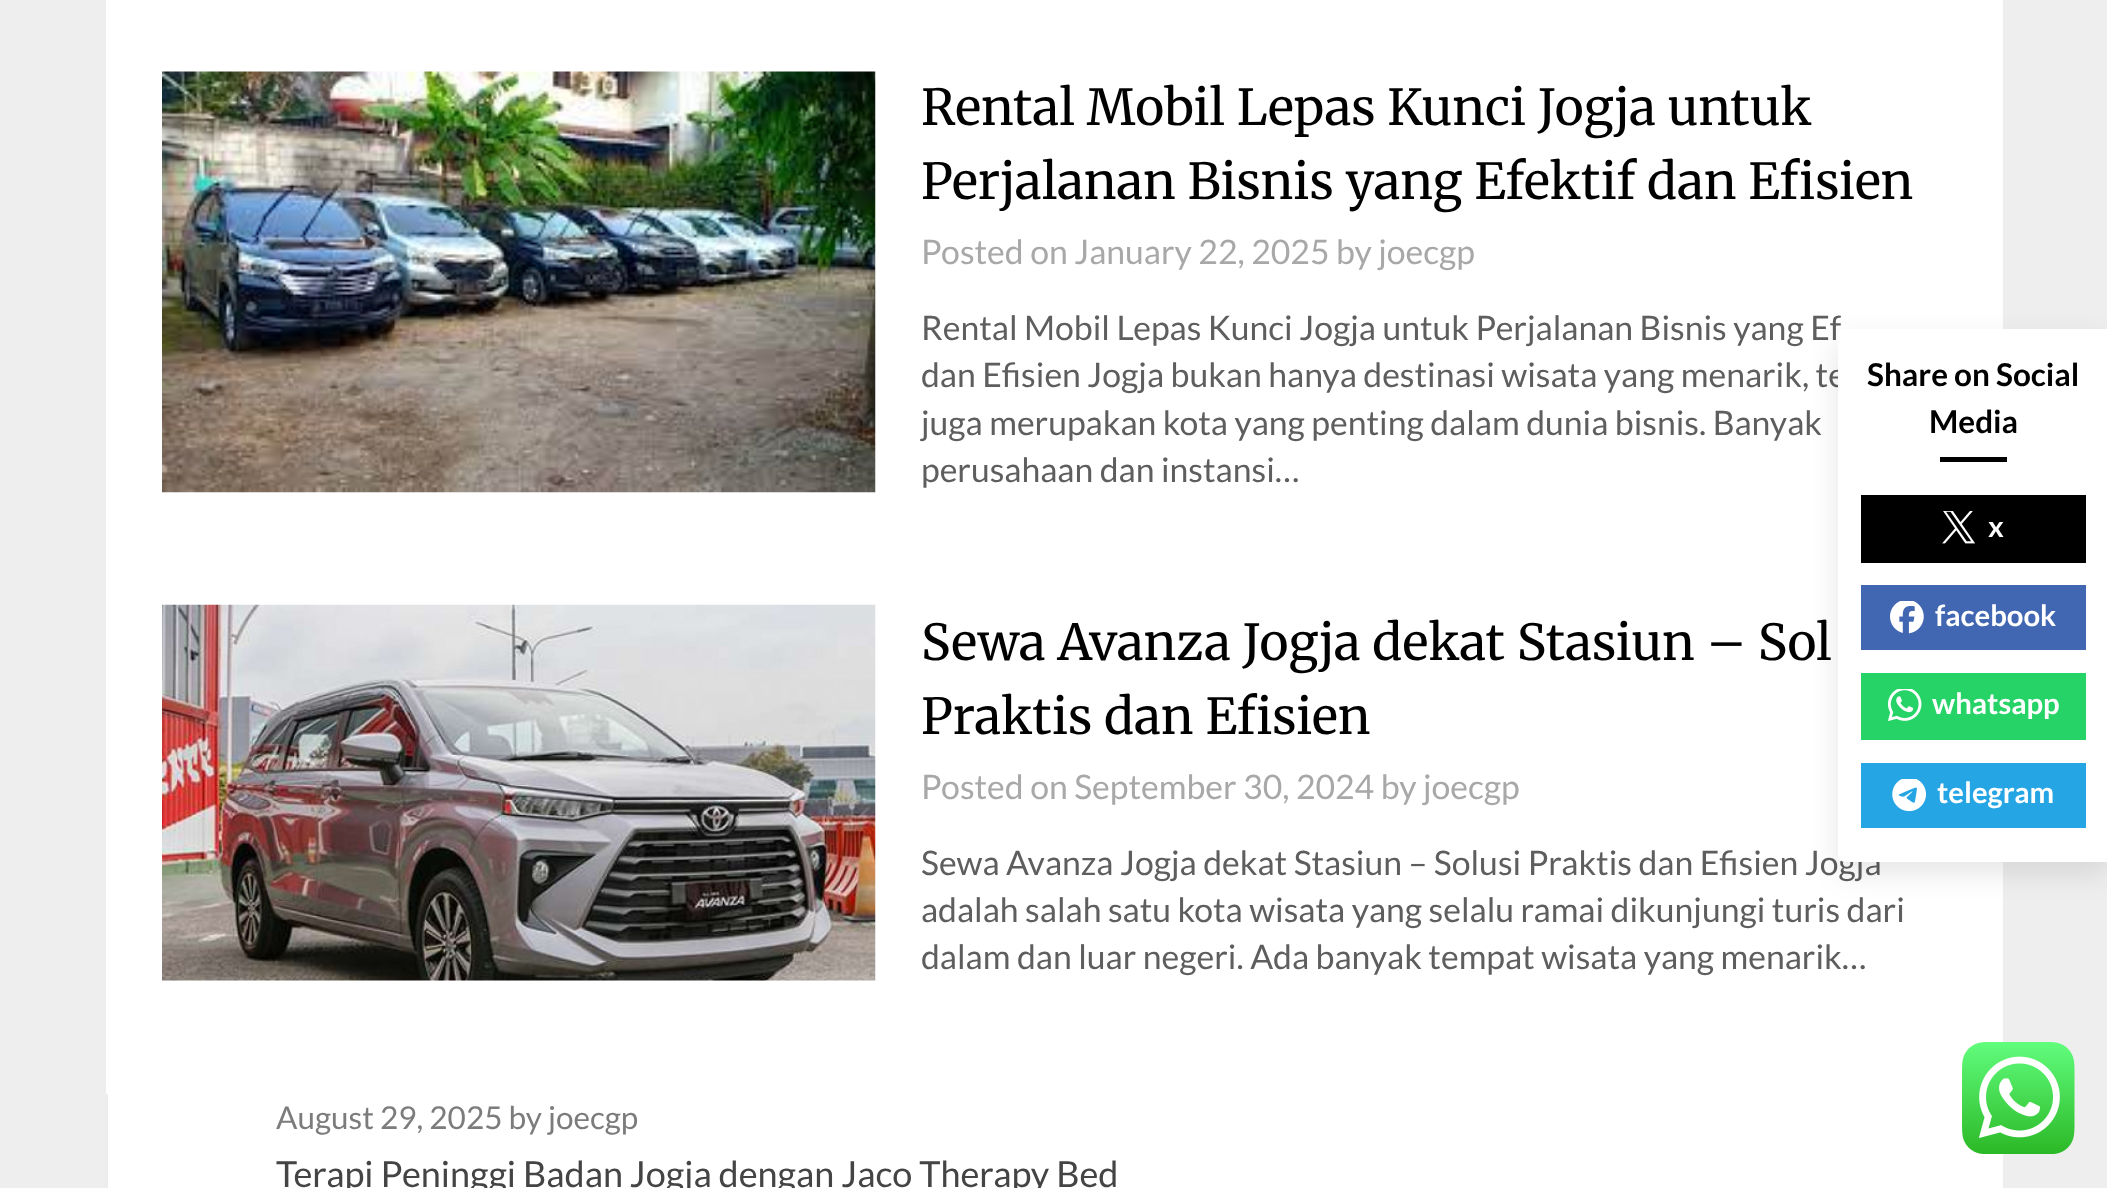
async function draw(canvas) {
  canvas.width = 2107
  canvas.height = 1188
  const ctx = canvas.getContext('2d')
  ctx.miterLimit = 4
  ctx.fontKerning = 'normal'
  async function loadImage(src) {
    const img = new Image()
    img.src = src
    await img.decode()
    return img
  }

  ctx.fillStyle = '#eee'
  ctx.fillRect(0, 0, 2107, 1188)
  ctx.fillStyle = '#fff'
  ctx.fillRect(106, 0, 1897, 1188)
  ctx.drawImage(await loadImage('image0.png'), 162, 71, 714, 422)
  ctx.font = '49.5px Merriweather'
  ctx.fillStyle = '#000'
  ctx.fillText('Rental Mobil Lepas Kunci Jogja untuk', 921, 125)
  ctx.fillText('Perjalanan Bisnis yang Efektif dan Efisien', 921, 199)
  ctx.font = '33.75px Lato'
  ctx.fillStyle = '#a8a8a8'
  ctx.fillText('Posted on January 22, 2025 by joecgp', 921, 264)
  ctx.fillStyle = '#5e5e5e'
  ctx.fillText('Rental Mobil Lepas Kunci Jogja untuk Perjalanan Bisnis yang Ef', 921, 340)
  ctx.fillText('dan Efisien Jogja bukan hanya destinasi wisata yang menarik, te', 921, 387)
  ctx.fillText('juga merupakan kota yang penting dalam dunia bisnis. Banyak', 921, 435)
  ctx.fillText('perusahaan dan instansi…', 921, 482)
  ctx.drawImage(await loadImage('image1.png'), 162, 604, 714, 377)
  ctx.font = '49.5px Merriweather'
  ctx.fillStyle = '#000'
  ctx.fillText('Sewa Avanza Jogja dekat Stasiun – Sol', 921, 660)
  ctx.fillText('Praktis dan Efisien', 921, 734)
  ctx.font = '33.75px Lato'
  ctx.fillStyle = '#a8a8a8'
  ctx.fillText('Posted on September 30, 2024 by joecgp', 921, 799)
  ctx.fillStyle = '#5e5e5e'
  ctx.fillText('Sewa Avanza Jogja dekat Stasiun – Solusi Praktis dan Efisien Jogja', 921, 875)
  ctx.fillText('adalah salah satu kota wisata yang selalu ramai dikunjungi turis dari', 921, 922)
  ctx.fillText('dalam dan luar negeri. Ada banyak tempat wisata yang menarik…', 921, 969)
  ctx.fillStyle = '#ececec'
  ctx.fillRect(106, 1094, 2, 94)
  ctx.font = '31.5px Lato'
  ctx.fillStyle = '#7c7c7c'
  ctx.fillText('August 29, 2025 by joecgp', 276, 1129)
  ctx.font = '36px Lato'
  ctx.fillStyle = '#444'
  ctx.fillText('Terapi Peninggi Badan Jogja dengan Jaco Therapy Bed', 276, 1187)
  ctx.fillStyle = '#0000001a'
  ctx.filter = 'blur(14.5px)'
  ctx.beginPath()
  ctx.roundRect(1838, 340, 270, 533, 7)
  ctx.fill()
  ctx.filter = 'none'
  ctx.fillStyle = '#fff'
  ctx.beginPath()
  ctx.moveTo(1845, 329)
  ctx.lineTo(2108, 329)
  ctx.lineTo(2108, 862)
  ctx.lineTo(1845, 862)
  ctx.bezierCurveTo(1841, 862, 1838, 859, 1838, 855)
  ctx.lineTo(1838, 336)
  ctx.bezierCurveTo(1838, 332, 1841, 329, 1845, 329)
  ctx.closePath()
  ctx.fill()
  ctx.font = 'bold 31.5px Lato'
  ctx.fillStyle = '#000'
  ctx.fillText('Share on Social', 1867, 386)
  ctx.fillText('Media', 1929, 433)
  ctx.fillRect(1940, 457, 67, 5)
  ctx.fillRect(1861, 495, 225, 68)
  ctx.drawImage(await loadImage('image2.png'), 1942, 511, 33, 33)
  ctx.font = 'bold 29.25px Lato'
  ctx.fillStyle = '#fff'
  ctx.fillText('x', 1988, 537)
  ctx.fillStyle = '#4267b2'
  ctx.fillRect(1861, 585, 225, 65)
  ctx.drawImage(await loadImage('image3.png'), 1890, 601, 34, 33)
  ctx.fillStyle = '#fff'
  ctx.fillText('facebook', 1935, 626)
  ctx.fillStyle = '#26d367'
  ctx.fillRect(1861, 673, 225, 67)
  ctx.drawImage(await loadImage('image4.png'), 1888, 689, 34, 32)
  ctx.fillStyle = '#fff'
  ctx.fillText('whatsapp', 1932, 714)
  ctx.fillStyle = '#26a5e5'
  ctx.fillRect(1861, 763, 225, 65)
  ctx.drawImage(await loadImage('image5.png'), 1892, 779, 34, 33)
  ctx.fillStyle = '#fff'
  ctx.fillText('telegram', 1937, 803)
  ctx.drawImage(await loadImage('image6.png'), 1962, 1042, 113, 112)
}

draw(document.querySelector('canvas'))
